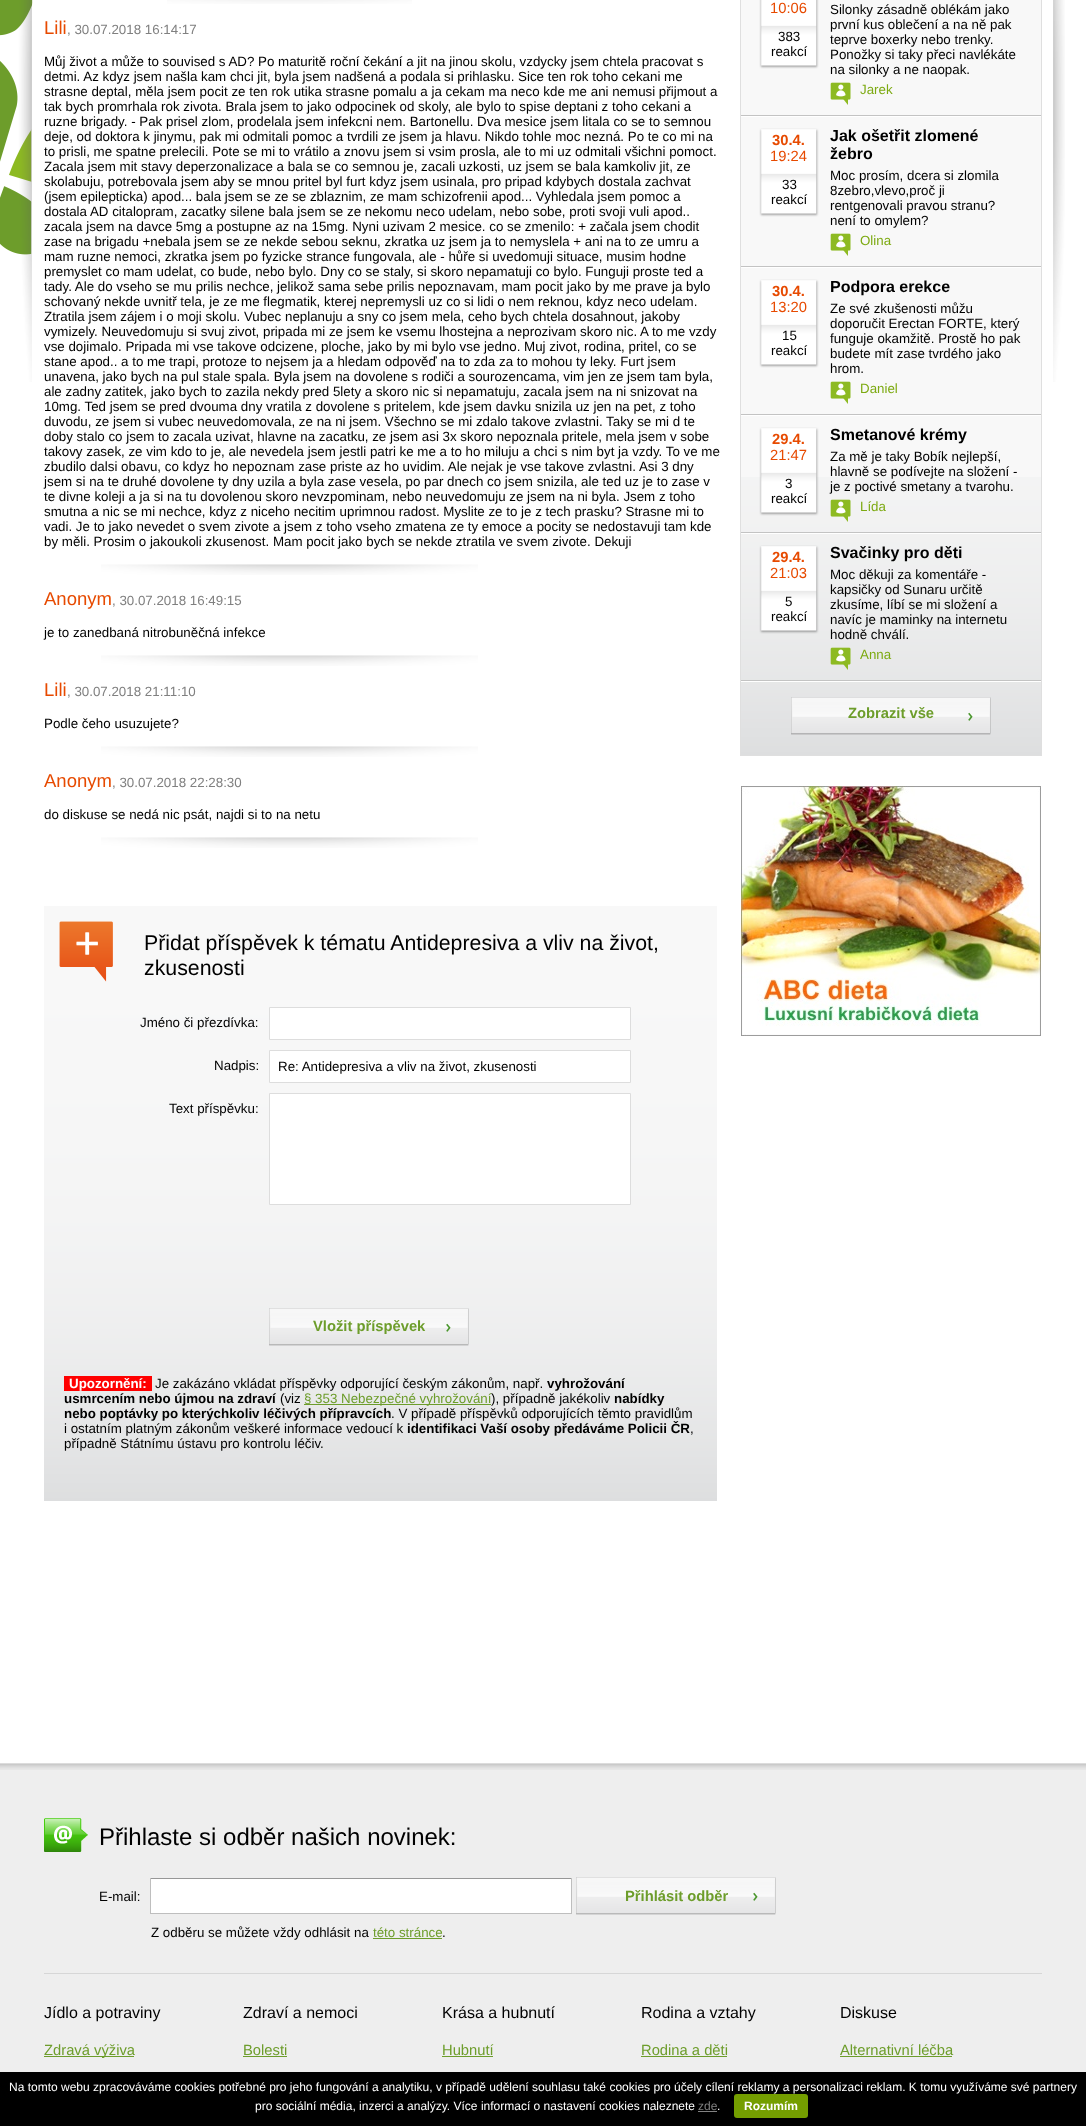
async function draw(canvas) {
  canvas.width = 1086
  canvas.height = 2126
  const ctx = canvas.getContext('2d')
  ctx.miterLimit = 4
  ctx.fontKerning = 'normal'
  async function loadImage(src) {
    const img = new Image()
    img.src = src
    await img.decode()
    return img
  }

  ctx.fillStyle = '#fff'
  ctx.fillRect(0, 0, 1086, 2126)
  ctx.drawImage(await loadImage('image0.png'), 0, 0, 1065, 382)
  ctx.drawImage(await loadImage('image1.png'), 167, 0, 245, 4)
  ctx.font = '18.5px Liberation Sans'
  ctx.fillStyle = '#e74a00'
  ctx.fillText('Lili', 44, 34)
  ctx.font = '13.33px Liberation Sans'
  ctx.fillStyle = '#808080'
  ctx.fillText(', 30.07.2018 16:14:17', 67, 34)
  ctx.fillStyle = '#000'
  ctx.fillText('Můj život a může to souvised s AD? Po maturitě roční čekání a jit na jinou skolu, vzdycky jsem chtela pracovat s', 44, 66)
  ctx.fillText('detmi. Az kdyz jsem našla kam chci jit, byla jsem nadšená a podala si prihlasku. Sice ten rok toho cekani me', 44, 81)
  ctx.fillText('strasne deptal, měla jsem pocit ze ten rok utika strasne pomalu a ja cekam ma neco kde me ani nemusi přijmout a', 44, 96)
  ctx.fillText('tak bych promrhala rok zivota. Brala jsem to jako odpocinek od skoly, ale bylo to spise deptani z toho cekani a', 44, 111)
  ctx.fillText('ruzne brigady. - Pak prisel zlom, prodelala jsem infekcni nem. Bartonellu. Dva mesice jsem litala co se to semnou', 44, 126)
  ctx.fillText('deje, od doktora k jinymu, pak mi odmitali pomoc a tvrdili ze jsem ja hlavu. Nikdo tohle moc nezná. Po te co mi na', 44, 141)
  ctx.fillText('to prisli, me spatne prelecili. Pote se mi to vrátilo a znovu jsem si vsim prosla, ale to mi uz odmitali všichni pomoct.', 44, 156)
  ctx.fillText('Zacala jsem mit stavy deperzonalizace a bala se co semnou je, zacali uzkosti, uz jsem se bala kamkoliv jit, ze', 44, 171)
  ctx.fillText('skolabuju, potrebovala jsem aby se mnou pritel byl furt kdyz jsem usinala, pro pripad kdybych dostala zachvat', 44, 186)
  ctx.fillText('(jsem epilepticka) apod... bala jsem se ze se zblaznim, ze mam schizofrenii apod... Vyhledala jsem pomoc a', 44, 201)
  ctx.fillText('dostala AD citalopram, zacatky silene bala jsem se ze nekomu neco udelam, nebo sobe, proti svoji vuli apod..', 44, 216)
  ctx.fillText('zacala jsem na davce 5mg a postupne az na 15mg. Nyni uzivam 2 mesice. co se zmenilo: + začala jsem chodit', 44, 231)
  ctx.fillText('zase na brigadu +nebala jsem se ze nekde sebou seknu, zkratka uz jsem ja to nemyslela + ani na to ze umru a', 44, 246)
  ctx.fillText('mam ruzne nemoci, zkratka jsem po fyzicke strance fungovala, ale - hůře si uvedomuji situace, musim hodne', 44, 261)
  ctx.fillText('premyslet co mam udelat, co bude, nebo bylo. Dny co se staly, si skoro nepamatuji co bylo. Funguji proste ted a', 44, 276)
  ctx.fillText('tady. Ale do vseho se mu prilis nechce, jelikož sama sebe prilis nepoznavam, mam pocit jako by me prave ja bylo', 44, 291)
  ctx.fillText('schovaný nekde uvnitř tela, je ze me flegmatik, kterej nepremysli uz co si lidi o nem reknou, kdyz neco udelam.', 44, 306)
  ctx.fillText('Ztratila jsem zájem i o moji skolu. Vubec neplanuju a sny co jsem mela, ceho bych chtela dosahnout, jakoby', 44, 321)
  ctx.fillText('vymizely. Neuvedomuju si svuj zivot, pripada mi ze jsem ke vsemu lhostejna a neprozivam skoro nic. A to me vzdy', 44, 336)
  ctx.fillText('vse dojimalo. Pripada mi vse takove odcizene, ploche, jako by mi bylo vse jedno. Muj zivot, rodina, pritel, co se', 44, 351)
  ctx.fillText('stane apod.. a to me trapi, protoze to nejsem ja a hledam odpověď na to zda za to mohou ty leky. Furt jsem', 44, 366)
  ctx.fillText('unavena, jako bych na pul stale spala. Byla jsem na dovolene s rodiči a sourozencama, vim jen ze jsem tam byla,', 44, 381)
  ctx.fillText('ale zadny zatitek, jako bych to zazila nekdy pred 5lety a skoro nic si nepamatuju, zacala jsem na ni snizovat na', 44, 396)
  ctx.fillText('10mg. Ted jsem se pred dvouma dny vratila z dovolene s pritelem, kde jsem davku snizila uz jen na pet, z toho', 44, 411)
  ctx.fillText('duvodu, ze jsem si vubec neuvedomovala, ze na ni jsem. Všechno se mi zdalo takove zvlastni. Taky se mi d te', 44, 426)
  ctx.fillText('doby stalo co jsem to zacala uzivat, hlavne na zacatku, ze jsem asi 3x skoro nepoznala pritele, mela jsem v sobe', 44, 441)
  ctx.fillText('takovy zasek, ze vim kdo to je, ale nevedela jsem jestli patri ke me a to ho miluju a chci s nim byt ja vzdy. To ve me', 44, 456)
  ctx.fillText('zbudilo dalsi obavu, co kdyz ho nepoznam zase priste az ho uvidim. Ale nejak je vse takove zvlastni. Asi 3 dny', 44, 471)
  ctx.fillText('jsem si na te druhé dovolene ty dny uzila a byla zase vesela, po par dnech co jsem snizila, ale ted uz je to zase v', 44, 486)
  ctx.fillText('te divne koleji a ja si na tu dovolenou skoro nevzpominam, nebo neuvedomuju ze jsem na ni byla. Jsem z toho', 44, 501)
  ctx.fillText('smutna a nic se mi nechce, kdyz z niceho necitim uprimnou radost. Myslite ze to je z tech prasku? Strasne mi to', 44, 516)
  ctx.fillText('vadi. Je to jako nevedet o svem zivote a jsem z toho vseho zmatena ze ty emoce a pocity se nedostavuji tam kde', 44, 531)
  ctx.fillText('by měli. Prosim o jakoukoli zkusenost. Mam pocit jako bych se nekde ztratila ve svem zivote. Dekuji', 44, 546)
  ctx.drawImage(await loadImage('image2.png'), 101, 564, 377, 11)
  ctx.font = '18.5px Liberation Sans'
  ctx.fillStyle = '#e74a00'
  ctx.fillText('Anonym', 44, 605)
  ctx.font = '13.33px Liberation Sans'
  ctx.fillStyle = '#808080'
  ctx.fillText(', 30.07.2018 16:49:15', 112, 605)
  ctx.fillStyle = '#000'
  ctx.fillText('je to zanedbaná nitrobuněčná infekce', 44, 637)
  ctx.drawImage(await loadImage('image2.png'), 101, 655, 377, 11)
  ctx.font = '18.5px Liberation Sans'
  ctx.fillStyle = '#e74a00'
  ctx.fillText('Lili', 44, 696)
  ctx.font = '13.33px Liberation Sans'
  ctx.fillStyle = '#808080'
  ctx.fillText(', 30.07.2018 21:11:10', 67, 696)
  ctx.fillStyle = '#000'
  ctx.fillText('Podle čeho usuzujete?', 44, 728)
  ctx.drawImage(await loadImage('image2.png'), 101, 746, 377, 11)
  ctx.font = '18.5px Liberation Sans'
  ctx.fillStyle = '#e74a00'
  ctx.fillText('Anonym', 44, 787)
  ctx.font = '13.33px Liberation Sans'
  ctx.fillStyle = '#808080'
  ctx.fillText(', 30.07.2018 22:28:30', 112, 787)
  ctx.fillStyle = '#000'
  ctx.fillText('do diskuse se nedá nic psát, najdi si to na netu', 44, 819)
  ctx.drawImage(await loadImage('image2.png'), 101, 837, 377, 11)
  ctx.drawImage(await loadImage('image3.png'), 44, 906, 673, 595)
  ctx.drawImage(await loadImage('image4.png'), 59, 921, 54, 61)
  ctx.font = '21.3px Liberation Sans'
  ctx.fillText('Přidat příspěvek k tématu Antidepresiva a vliv na život,', 144, 950)
  ctx.fillText('zkusenosti', 144, 975)
  ctx.font = '13.33px Liberation Sans'
  ctx.fillText('Jméno či přezdívka:', 140, 1027)
  ctx.fillStyle = '#fff'
  ctx.beginPath()
  ctx.rect(269.5, 1007.5, 361, 32)
  ctx.fill()
  ctx.strokeStyle = '#ddd'
  ctx.stroke()
  ctx.fillStyle = '#000'
  ctx.fillText('Nadpis:', 214, 1070)
  ctx.fillStyle = '#fff'
  ctx.beginPath()
  ctx.rect(269.5, 1050.5, 361, 32)
  ctx.fill()
  ctx.stroke()
  ctx.fillStyle = '#000'
  ctx.fillText('Re: Antidepresiva a vliv na život, zkusenosti', 278, 1071)
  ctx.fillText('Text příspěvku:', 169, 1113)
  ctx.fillStyle = '#fff'
  ctx.beginPath()
  ctx.rect(269.5, 1093.5, 361, 111)
  ctx.fill()
  ctx.stroke()
  ctx.drawImage(await loadImage('image5.png'), 269, 1308, 200, 38)
  ctx.font = 'bold 14.75px Liberation Sans'
  ctx.fillStyle = '#6d9d2b'
  ctx.fillText('Vložit příspěvek', 313, 1331)
  ctx.fillStyle = '#f00'
  ctx.fillRect(64, 1376, 88, 15)
  ctx.font = 'bold 13.33px Liberation Sans'
  ctx.fillStyle = '#fff'
  ctx.fillText('Upozornění:', 69, 1388)
  ctx.font = '13.33px Liberation Sans'
  ctx.fillStyle = '#000'
  ctx.fillText('Je zakázáno vkládat příspěvky odporující českým zákonům, např.', 155, 1388)
  ctx.font = 'bold 13.33px Liberation Sans'
  ctx.fillText('vyhrožování', 547, 1388)
  ctx.fillText('usmrcením nebo újmou na zdraví', 64, 1403)
  ctx.font = '13.33px Liberation Sans'
  ctx.fillText('(viz', 280, 1403)
  ctx.fillStyle = '#6d9d2b'
  ctx.fillRect(304, 1404, 187, 1)
  ctx.fillText('§ 353 Nebezpečné vyhrožování', 304, 1403)
  ctx.fillStyle = '#000'
  ctx.fillText('), případně jakékoliv', 491, 1403)
  ctx.font = 'bold 13.33px Liberation Sans'
  ctx.fillText('nabídky', 614, 1403)
  ctx.fillText('nebo poptávky po kterýchkoliv léčivých přípravcích', 64, 1418)
  ctx.font = '13.33px Liberation Sans'
  ctx.fillText('. V případě příspěvků odporujících těmto pravidlům', 391, 1418)
  ctx.fillText('i ostatním platným zákonům veškeré informace vedoucí k', 64, 1433)
  ctx.font = 'bold 13.33px Liberation Sans'
  ctx.fillText('identifikaci Vaší osoby předáváme Policii ČR', 407, 1433)
  ctx.font = '13.33px Liberation Sans'
  ctx.fillText(',', 690, 1433)
  ctx.fillText('případně Státnímu ústavu pro kontrolu léčiv.', 64, 1448)
  ctx.fillStyle = '#f8f8f8'
  ctx.fillRect(741, 0, 300, 477)
  ctx.drawImage(await loadImage('image6.png'), 741, 477, 300, 278)
  ctx.strokeStyle = '#dfdfdf'
  ctx.strokeRect(740.5, -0.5, 301, 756)
  ctx.drawImage(await loadImage('image7.png'), 759, 0, 60, 69)
  ctx.font = '14.75px Liberation Sans'
  ctx.fillStyle = '#e74a00'
  ctx.fillText('10:06', 770, 13)
  ctx.font = '13.33px Liberation Sans'
  ctx.fillStyle = '#000'
  ctx.fillText('383', 778, 41)
  ctx.fillText('reakcí', 771, 56)
  ctx.fillText('Silonky zásadně oblékám jako', 830, 14)
  ctx.fillText('první kus oblečení a na ně pak', 830, 29)
  ctx.fillText('teprve boxerky nebo trenky.', 830, 44)
  ctx.fillText('Ponožky si taky přeci navlékáte', 830, 59)
  ctx.fillText('na silonky a ne naopak.', 830, 74)
  ctx.drawImage(await loadImage('image8.png'), 830, 82, 21, 23)
  ctx.fillStyle = '#7daa12'
  ctx.fillText('Jarek', 860, 94)
  ctx.drawImage(await loadImage('image9.png'), 741, 115, 300, 2)
  ctx.drawImage(await loadImage('image10.png'), 759, 128, 60, 89)
  ctx.font = 'bold 14.75px Liberation Sans'
  ctx.fillStyle = '#e74a00'
  ctx.fillText('30.4.', 772, 145)
  ctx.font = '14.75px Liberation Sans'
  ctx.fillText('19:24', 770, 161)
  ctx.font = '13.33px Liberation Sans'
  ctx.fillStyle = '#000'
  ctx.fillText('33', 782, 189)
  ctx.fillText('reakcí', 771, 204)
  ctx.font = 'bold 16px Liberation Sans'
  ctx.fillText('Jak ošetřit zlomené', 830, 141)
  ctx.fillText('žebro', 830, 159)
  ctx.font = '13.33px Liberation Sans'
  ctx.fillText('Moc prosím, dcera si zlomila', 830, 180)
  ctx.fillText('8zebro,vlevo,proč ji', 830, 195)
  ctx.fillText('rentgenovali pravou stranu?', 830, 210)
  ctx.fillText('není to omylem?', 830, 225)
  ctx.drawImage(await loadImage('image8.png'), 830, 233, 21, 23)
  ctx.fillStyle = '#7daa12'
  ctx.fillText('Olina', 860, 245)
  ctx.drawImage(await loadImage('image9.png'), 741, 266, 300, 2)
  ctx.drawImage(await loadImage('image10.png'), 759, 279, 60, 89)
  ctx.font = 'bold 14.75px Liberation Sans'
  ctx.fillStyle = '#e74a00'
  ctx.fillText('30.4.', 772, 296)
  ctx.font = '14.75px Liberation Sans'
  ctx.fillText('13:20', 770, 312)
  ctx.font = '13.33px Liberation Sans'
  ctx.fillStyle = '#000'
  ctx.fillText('15', 782, 340)
  ctx.fillText('reakcí', 771, 355)
  ctx.font = 'bold 16px Liberation Sans'
  ctx.fillText('Podpora erekce', 830, 292)
  ctx.font = '13.33px Liberation Sans'
  ctx.fillText('Ze své zkušenosti můžu', 830, 313)
  ctx.fillText('doporučit Erectan FORTE, který', 830, 328)
  ctx.fillText('funguje okamžitě. Prostě ho pak', 830, 343)
  ctx.fillText('budete mít zase tvrdého jako', 830, 358)
  ctx.fillText('hrom.', 830, 373)
  ctx.drawImage(await loadImage('image8.png'), 830, 381, 21, 23)
  ctx.fillStyle = '#7daa12'
  ctx.fillText('Daniel', 860, 393)
  ctx.drawImage(await loadImage('image9.png'), 741, 414, 300, 2)
  ctx.drawImage(await loadImage('image11.png'), 759, 427, 60, 89)
  ctx.font = 'bold 14.75px Liberation Sans'
  ctx.fillStyle = '#e74a00'
  ctx.fillText('29.4.', 772, 444)
  ctx.font = '14.75px Liberation Sans'
  ctx.fillText('21:47', 770, 460)
  ctx.font = '13.33px Liberation Sans'
  ctx.fillStyle = '#000'
  ctx.fillText('3', 785, 488)
  ctx.fillText('reakcí', 771, 503)
  ctx.font = 'bold 16px Liberation Sans'
  ctx.fillText('Smetanové krémy', 830, 440)
  ctx.font = '13.33px Liberation Sans'
  ctx.fillText('Za mě je taky Bobík nejlepší,', 830, 461)
  ctx.fillText('hlavně se podívejte na složení -', 830, 476)
  ctx.fillText('je z poctivé smetany a tvarohu.', 830, 491)
  ctx.drawImage(await loadImage('image12.png'), 830, 499, 21, 23)
  ctx.fillStyle = '#7daa12'
  ctx.fillText('Lída', 860, 511)
  ctx.drawImage(await loadImage('image9.png'), 741, 532, 300, 2)
  ctx.drawImage(await loadImage('image13.png'), 759, 545, 60, 89)
  ctx.font = 'bold 14.75px Liberation Sans'
  ctx.fillStyle = '#e74a00'
  ctx.fillText('29.4.', 772, 562)
  ctx.font = '14.75px Liberation Sans'
  ctx.fillText('21:03', 770, 578)
  ctx.font = '13.33px Liberation Sans'
  ctx.fillStyle = '#000'
  ctx.fillText('5', 785, 606)
  ctx.fillText('reakcí', 771, 621)
  ctx.font = 'bold 16px Liberation Sans'
  ctx.fillText('Svačinky pro děti', 830, 558)
  ctx.font = '13.33px Liberation Sans'
  ctx.fillText('Moc děkuji za komentáře -', 830, 579)
  ctx.fillText('kapsičky od Sunaru určitě', 830, 594)
  ctx.fillText('zkusíme, líbí se mi složení a', 830, 609)
  ctx.fillText('navíc je maminky na internetu', 830, 624)
  ctx.fillText('hodně chválí.', 830, 639)
  ctx.drawImage(await loadImage('image14.png'), 830, 647, 21, 23)
  ctx.fillStyle = '#7daa12'
  ctx.fillText('Anna', 860, 659)
  ctx.drawImage(await loadImage('image9.png'), 741, 680, 300, 2)
  ctx.drawImage(await loadImage('image15.png'), 791, 697, 200, 38)
  ctx.font = 'bold 14.75px Liberation Sans'
  ctx.fillStyle = '#6d9d2b'
  ctx.fillText('Zobrazit vše', 848, 718)
  ctx.drawImage(await loadImage('image16.png'), 741, 786, 300, 250)
  ctx.fillStyle = '#eee'
  ctx.fillRect(0, 1770, 1086, 302)
  ctx.drawImage(await loadImage('image17.png'), 0, 1763, 1086, 7)
  ctx.drawImage(await loadImage('image18.png'), 44, 1763, 998, 7)
  ctx.fillStyle = '#d6d6d6'
  ctx.fillRect(44, 1973, 998, 1)
  ctx.drawImage(await loadImage('image19.png'), 44, 1818, 44, 34)
  ctx.font = '24px Liberation Sans'
  ctx.fillStyle = '#000'
  ctx.fillText('Přihlaste si odběr našich novinek:', 99, 1845)
  ctx.font = '13.33px Liberation Sans'
  ctx.fillText('E-mail:', 99, 1901)
  ctx.fillStyle = '#fff'
  ctx.fillRect(151, 1879, 420, 34)
  ctx.fillStyle = '#979797'
  ctx.fillRect(150, 1878, 422, 1)
  ctx.fillStyle = '#bebebe'
  ctx.fillRect(571, 1878, 1, 36)
  ctx.fillRect(150, 1913, 422, 1)
  ctx.fillRect(150, 1878, 1, 36)
  ctx.drawImage(await loadImage('image20.png'), 576, 1877, 200, 38)
  ctx.font = 'bold 14.75px Liberation Sans'
  ctx.fillStyle = '#6d9d2b'
  ctx.fillText('Přihlásit odběr', 625, 1901)
  ctx.font = '13.33px Liberation Sans'
  ctx.fillStyle = '#000'
  ctx.fillText('Z odběru se můžete vždy odhlásit na', 151, 1937)
  ctx.fillStyle = '#6d9d2b'
  ctx.fillText('této stránce', 373, 1937)
  ctx.fillRect(373, 1938, 69, 1)
  ctx.fillStyle = '#000'
  ctx.fillText('.', 442, 1937)
  ctx.font = '16px Liberation Sans'
  ctx.fillText('Jídlo a potraviny', 44, 2018)
  ctx.fillStyle = '#6d9d2b'
  ctx.fillRect(44, 2056, 90, 1)
  ctx.font = '14.75px Liberation Sans'
  ctx.fillText('Zdravá výživa', 44, 2055)
  ctx.font = '16px Liberation Sans'
  ctx.fillStyle = '#000'
  ctx.fillText('Zdraví a nemoci', 243, 2018)
  ctx.font = '14.75px Liberation Sans'
  ctx.fillStyle = '#6d9d2b'
  ctx.fillText('Bolesti', 243, 2055)
  ctx.fillRect(243, 2056, 44, 1)
  ctx.font = '16px Liberation Sans'
  ctx.fillStyle = '#000'
  ctx.fillText('Krása a hubnutí', 442, 2018)
  ctx.font = '14.75px Liberation Sans'
  ctx.fillStyle = '#6d9d2b'
  ctx.fillText('Hubnutí', 442, 2055)
  ctx.fillRect(442, 2056, 51, 1)
  ctx.font = '16px Liberation Sans'
  ctx.fillStyle = '#000'
  ctx.fillText('Rodina a vztahy', 641, 2018)
  ctx.font = '14.75px Liberation Sans'
  ctx.fillStyle = '#6d9d2b'
  ctx.fillText('Rodina a děti', 641, 2055)
  ctx.fillRect(641, 2056, 86, 1)
  ctx.font = '16px Liberation Sans'
  ctx.fillStyle = '#000'
  ctx.fillText('Diskuse', 840, 2018)
  ctx.font = '14.75px Liberation Sans'
  ctx.fillStyle = '#6d9d2b'
  ctx.fillText('Alternativní léčba', 840, 2055)
  ctx.fillRect(840, 2056, 112, 1)
  ctx.fillStyle = '#000'
  ctx.fillRect(0, 2072, 1086, 54)
  ctx.font = '12px Liberation Sans'
  ctx.fillStyle = '#fff'
  ctx.fillText('Na tomto webu zpracováváme cookies potřebné pro jeho fungování a analytiku, v případě udělení souhlasu také cookies pro účely cílení reklamy a personalizaci reklam. K tomu využíváme své partnery', 9, 2091)
  ctx.fillText('pro sociální média, inzerci a analýzy. Více informací o nastavení cookies naleznete', 255, 2110)
  ctx.fillStyle = '#808080'
  ctx.fillText('zde', 698, 2110)
  ctx.fillStyle = '#828282'
  ctx.fillRect(698, 2111, 19, 1)
  ctx.fillStyle = '#fff'
  ctx.fillText('.', 717, 2110)
  ctx.fillStyle = '#749e00'
  ctx.beginPath()
  ctx.roundRect(734, 2094, 74, 24, 3)
  ctx.fill()
  ctx.font = 'bold 12px Liberation Sans'
  ctx.fillStyle = '#fff'
  ctx.fillText('Rozumím', 744, 2110)
}

draw(document.querySelector('canvas'))
